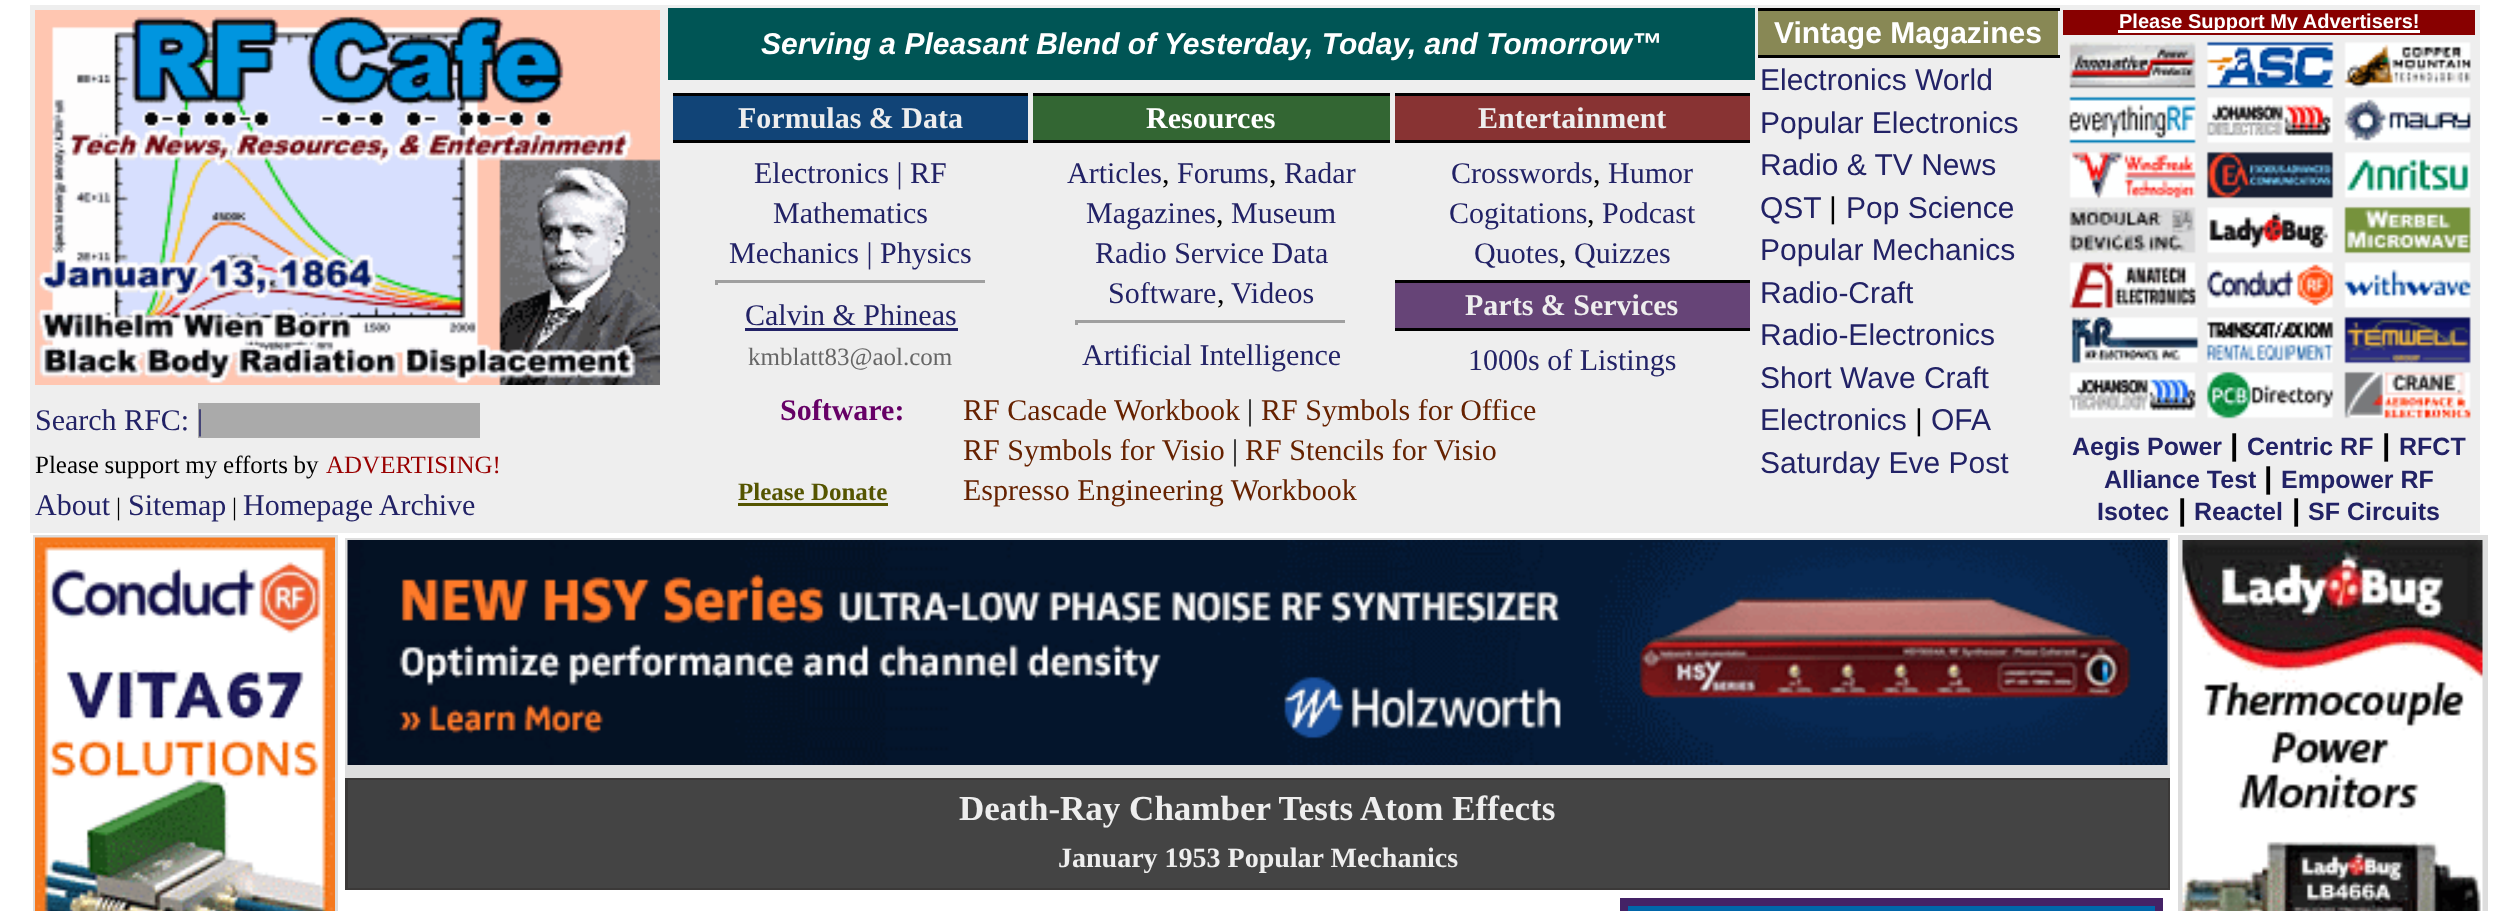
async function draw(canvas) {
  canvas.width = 2519
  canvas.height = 911
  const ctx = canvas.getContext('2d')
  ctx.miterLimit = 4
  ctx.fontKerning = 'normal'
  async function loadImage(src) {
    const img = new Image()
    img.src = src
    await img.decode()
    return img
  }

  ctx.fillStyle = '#fff'
  ctx.fillRect(0, 0, 2519, 911)
  ctx.fillStyle = '#eee'
  ctx.fillRect(30, 5, 2450, 528)
  ctx.drawImage(await loadImage('image0.png'), 35, 10, 625, 375)
  ctx.font = '30px Liberation Serif'
  ctx.fillStyle = '#226'
  ctx.fillText('Search RFC:', 35, 430)
  ctx.fillStyle = '#aaa'
  ctx.fillRect(198, 403, 282, 35)
  ctx.fillStyle = '#226'
  ctx.fillText('|', 197, 430)
  ctx.wordSpacing = '-0.5px'
  ctx.font = '25px Liberation Serif'
  ctx.fillStyle = '#000'
  ctx.fillText('Please support my efforts by', 35, 473)
  ctx.wordSpacing = '0px'
  ctx.fillStyle = '#900'
  ctx.fillText('ADVERTISING!', 326, 473)
  ctx.font = '30px Liberation Serif'
  ctx.fillStyle = '#226'
  ctx.fillText('About', 35, 515)
  ctx.font = '25px Liberation Serif'
  ctx.fillStyle = '#000'
  ctx.fillText('|', 116, 515)
  ctx.font = '30px Liberation Serif'
  ctx.fillStyle = '#226'
  ctx.fillText('Sitemap', 128, 515)
  ctx.font = '25px Liberation Serif'
  ctx.fillStyle = '#000'
  ctx.fillText('|', 232, 515)
  ctx.font = '30px Liberation Serif'
  ctx.fillStyle = '#226'
  ctx.fillText('Homepage Archive', 243, 515)
  ctx.fillStyle = '#055'
  ctx.fillRect(668, 8, 1087, 72)
  ctx.font = 'italic bold 30px Liberation Sans'
  ctx.fillStyle = '#fff'
  ctx.fillText('Serving a Pleasant Blend of Yesterday, Today, and Tomorrow™', 761, 54)
  ctx.fillStyle = '#885'
  ctx.fillRect(1758, 11, 300, 44)
  ctx.fillStyle = '#000'
  ctx.fillRect(1758, 8, 302, 3)
  ctx.fillRect(1758, 55, 302, 3)
  ctx.font = 'bold 30px Liberation Sans'
  ctx.fillStyle = '#fff'
  ctx.fillText('Vintage Magazines', 1774, 43)
  ctx.font = '30px Liberation Sans'
  ctx.fillStyle = '#226'
  ctx.fillText('Electronics World', 1760, 90)
  ctx.fillText('Popular Electronics', 1760, 133)
  ctx.fillText('Radio & TV News', 1760, 175)
  ctx.fillText('QST', 1760, 218)
  ctx.fillStyle = '#000'
  ctx.fillText('|', 1829, 218)
  ctx.fillStyle = '#226'
  ctx.fillText('Pop Science', 1846, 218)
  ctx.fillText('Popular Mechanics', 1760, 260)
  ctx.fillText('Radio-Craft', 1760, 303)
  ctx.fillText('Radio-Electronics', 1760, 345)
  ctx.fillText('Short Wave Craft', 1760, 388)
  ctx.fillText('Electronics', 1760, 430)
  ctx.fillStyle = '#000'
  ctx.fillText('|', 1915, 430)
  ctx.fillStyle = '#226'
  ctx.fillText('OFA', 1931, 430)
  ctx.fillText('Saturday Eve Post', 1760, 473)
  ctx.fillStyle = '#800'
  ctx.fillRect(2063, 10, 412, 25)
  ctx.fillStyle = '#fff'
  ctx.fillRect(2118, 30, 302, 3)
  ctx.font = 'bold 20px Liberation Sans'
  ctx.fillText('Please Support My Advertisers!', 2119, 28)
  ctx.drawImage(await loadImage('image1.png'), 2069, 41, 402, 378)
  ctx.font = 'bold 25px Liberation Sans'
  ctx.fillStyle = '#226'
  ctx.fillText('Aegis Power', 2072, 455)
  ctx.font = 'bold 30px Liberation Sans'
  ctx.fillStyle = '#000'
  ctx.fillText('|', 2230, 455)
  ctx.font = 'bold 25px Liberation Sans'
  ctx.fillStyle = '#226'
  ctx.fillText('Centric RF', 2247, 455)
  ctx.font = 'bold 30px Liberation Sans'
  ctx.fillStyle = '#000'
  ctx.fillText('|', 2382, 455)
  ctx.font = 'bold 25px Liberation Sans'
  ctx.fillStyle = '#226'
  ctx.fillText('RFCT', 2399, 455)
  ctx.fillText('Alliance Test', 2104, 488)
  ctx.font = 'bold 30px Liberation Sans'
  ctx.fillStyle = '#000'
  ctx.fillText('|', 2264, 488)
  ctx.font = 'bold 25px Liberation Sans'
  ctx.fillStyle = '#226'
  ctx.fillText('Empower RF', 2281, 488)
  ctx.fillText('Isotec', 2097, 520)
  ctx.font = 'bold 30px Liberation Sans'
  ctx.fillStyle = '#000'
  ctx.fillText('|', 2178, 520)
  ctx.font = 'bold 25px Liberation Sans'
  ctx.fillStyle = '#226'
  ctx.fillText('Reactel', 2194, 520)
  ctx.font = 'bold 30px Liberation Sans'
  ctx.fillStyle = '#000'
  ctx.fillText('|', 2292, 520)
  ctx.font = 'bold 25px Liberation Sans'
  ctx.fillStyle = '#226'
  ctx.fillText('SF Circuits', 2308, 520)
  ctx.fillStyle = '#147'
  ctx.fillRect(673, 96, 355, 44)
  ctx.fillStyle = '#000'
  ctx.fillRect(673, 93, 355, 3)
  ctx.fillRect(673, 140, 355, 3)
  ctx.font = 'bold 30px Liberation Serif'
  ctx.fillStyle = '#eee'
  ctx.fillText('Formulas & Data', 738, 128)
  ctx.font = '30px Liberation Serif'
  ctx.fillStyle = '#226'
  ctx.fillText('Electronics | RF', 754, 183)
  ctx.fillText('Mathematics', 773, 223)
  ctx.fillText('Mechanics | Physics', 729, 263)
  ctx.fillStyle = '#9f9f9f'
  ctx.fillRect(715, 280, 273, 3)
  ctx.fillStyle = '#eee'
  ctx.fillRect(985, 280, 3, 5)
  ctx.fillStyle = '#9f9f9f'
  ctx.fillRect(715, 280, 3, 5)
  ctx.fillStyle = '#226'
  ctx.fillText('Calvin & Phineas', 745, 325)
  ctx.fillRect(745, 328, 213, 3)
  ctx.font = '25px Liberation Serif'
  ctx.fillStyle = '#666'
  ctx.fillText('kmblatt83@aol.com', 748, 365)
  ctx.fillStyle = '#363'
  ctx.fillRect(1033, 96, 357, 44)
  ctx.fillStyle = '#000'
  ctx.fillRect(1033, 93, 357, 3)
  ctx.fillRect(1033, 140, 357, 3)
  ctx.font = 'bold 30px Liberation Serif'
  ctx.fillStyle = '#fff'
  ctx.fillText('Resources', 1146, 128)
  ctx.font = '30px Liberation Serif'
  ctx.fillStyle = '#226'
  ctx.fillText('Articles', 1067, 183)
  ctx.fillStyle = '#000'
  ctx.fillText(',', 1162, 183)
  ctx.fillStyle = '#226'
  ctx.fillText('Forums', 1177, 183)
  ctx.fillStyle = '#000'
  ctx.fillText(',', 1269, 183)
  ctx.fillStyle = '#226'
  ctx.fillText('Radar', 1284, 183)
  ctx.fillText('Magazines', 1086, 223)
  ctx.fillStyle = '#000'
  ctx.fillText(',', 1216, 223)
  ctx.fillStyle = '#226'
  ctx.fillText('Museum', 1231, 223)
  ctx.fillText('Radio Service Data', 1095, 263)
  ctx.fillText('Software', 1108, 303)
  ctx.fillStyle = '#000'
  ctx.fillText(',', 1217, 303)
  ctx.fillStyle = '#226'
  ctx.fillText('Videos', 1231, 303)
  ctx.fillStyle = '#9f9f9f'
  ctx.fillRect(1075, 320, 273, 3)
  ctx.fillStyle = '#eee'
  ctx.fillRect(1345, 320, 3, 5)
  ctx.fillStyle = '#9f9f9f'
  ctx.fillRect(1075, 320, 3, 5)
  ctx.fillStyle = '#226'
  ctx.fillText('Artificial Intelligence', 1082, 365)
  ctx.fillStyle = '#833'
  ctx.fillRect(1395, 96, 355, 44)
  ctx.fillStyle = '#000'
  ctx.fillRect(1395, 93, 355, 3)
  ctx.fillRect(1395, 140, 355, 3)
  ctx.font = 'bold 30px Liberation Serif'
  ctx.fillStyle = '#eee'
  ctx.fillText('Entertainment', 1478, 128)
  ctx.font = '30px Liberation Serif'
  ctx.fillStyle = '#226'
  ctx.fillText('Crosswords', 1451, 183)
  ctx.fillStyle = '#000'
  ctx.fillText(',', 1593, 183)
  ctx.fillStyle = '#226'
  ctx.fillText('Humor', 1608, 183)
  ctx.fillText('Cogitations', 1449, 223)
  ctx.fillStyle = '#000'
  ctx.fillText(',', 1587, 223)
  ctx.fillStyle = '#226'
  ctx.fillText('Podcast', 1602, 223)
  ctx.fillText('Quotes', 1474, 263)
  ctx.fillStyle = '#000'
  ctx.fillText(',', 1559, 263)
  ctx.fillStyle = '#226'
  ctx.fillText('Quizzes', 1574, 263)
  ctx.fillStyle = '#647'
  ctx.fillRect(1395, 283, 355, 45)
  ctx.fillStyle = '#000'
  ctx.fillRect(1395, 280, 355, 3)
  ctx.fillRect(1395, 328, 355, 3)
  ctx.font = 'bold 30px Liberation Serif'
  ctx.fillStyle = '#eee'
  ctx.fillText('Parts & Services', 1465, 315)
  ctx.font = '30px Liberation Serif'
  ctx.fillStyle = '#226'
  ctx.fillText('1000s of Listings', 1468, 370)
  ctx.font = 'bold 30px Liberation Serif'
  ctx.fillStyle = '#606'
  ctx.fillText('Software:', 780, 420)
  ctx.font = 'bold 25px Liberation Serif'
  ctx.fillStyle = '#550'
  ctx.fillText('Please Donate', 738, 500)
  ctx.fillRect(738, 503, 150, 3)
  ctx.font = '30px Liberation Serif'
  ctx.fillStyle = '#620'
  ctx.fillText('RF Cascade Workbook', 963, 420)
  ctx.fillStyle = '#000'
  ctx.fillText('|', 1247, 420)
  ctx.fillStyle = '#620'
  ctx.fillText('RF Symbols for Office', 1261, 420)
  ctx.fillText('RF Symbols for Visio', 963, 460)
  ctx.fillStyle = '#000'
  ctx.fillText('|', 1232, 460)
  ctx.fillStyle = '#620'
  ctx.fillText('RF Stencils for Visio', 1245, 460)
  ctx.fillText('Espresso Engineering Workbook', 963, 500)
  ctx.fillStyle = '#ddd'
  ctx.fillRect(33, 535, 305, 376)
  ctx.drawImage(await loadImage('image2.png'), 35, 537, 300, 374)
  ctx.fillRect(345, 538, 1825, 240)
  ctx.drawImage(await loadImage('image3.png'), 347, 540, 1821, 225)
  ctx.fillStyle = '#3b3938'
  ctx.fillRect(345, 778, 1825, 112)
  ctx.fillStyle = '#444'
  ctx.fillRect(348, 780, 1820, 108)
  ctx.font = 'bold 35px Liberation Serif'
  ctx.fillStyle = '#eee'
  ctx.fillText('Death-Ray Chamber Tests Atom Effects', 959, 820)
  ctx.font = 'bold 28px Liberation Serif'
  ctx.fillText('January 1953 Popular Mechanics', 1058, 867)
  ctx.fillStyle = '#426'
  ctx.fillRect(1620, 898, 543, 8)
  ctx.fillStyle = '#06a'
  ctx.fillRect(1623, 906, 537, 5)
  ctx.fillStyle = '#426'
  ctx.fillRect(2155, 898, 8, 13)
  ctx.fillRect(1620, 898, 8, 13)
  ctx.fillStyle = '#ddd'
  ctx.fillRect(2178, 535, 310, 376)
  ctx.drawImage(await loadImage('image4.png'), 2182, 540, 301, 371)
}

draw(document.querySelector('canvas'))
